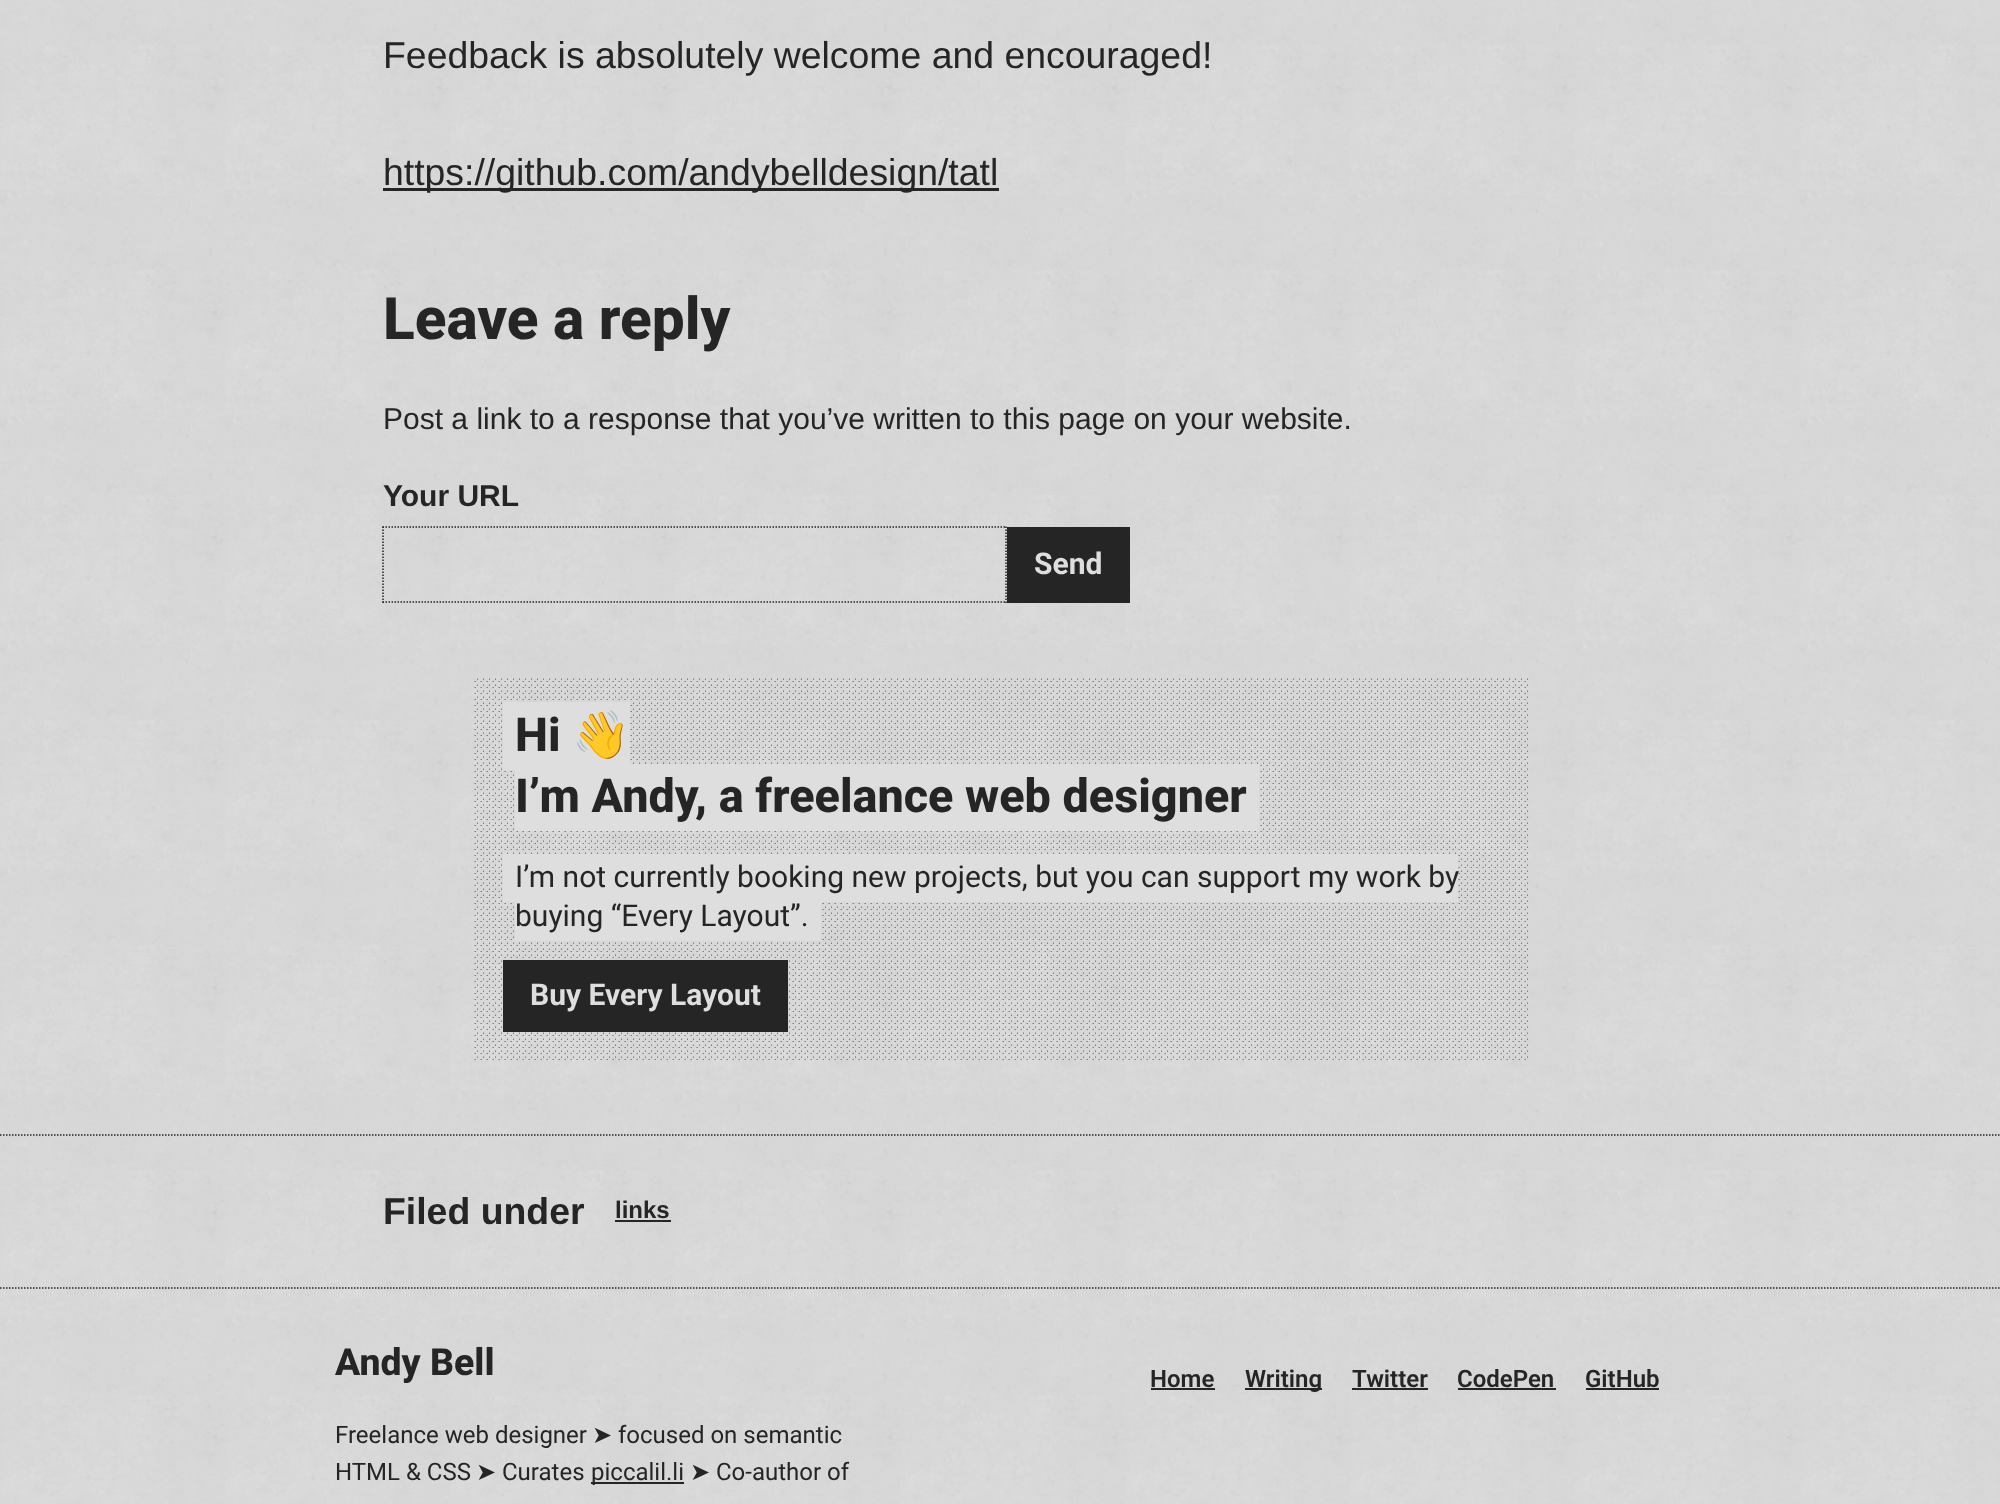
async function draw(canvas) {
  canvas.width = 2000
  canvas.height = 1504
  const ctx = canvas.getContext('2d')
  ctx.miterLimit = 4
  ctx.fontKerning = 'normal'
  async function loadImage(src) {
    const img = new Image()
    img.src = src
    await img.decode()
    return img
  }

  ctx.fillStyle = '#dedede'
  ctx.fillRect(0, 0, 2000, 1504)
  ctx.drawImage(await loadImage('image0.png'), 0, 0, 2000, 1504)
  ctx.font = '37.4px Liberation Sans'
  ctx.fillStyle = '#252525'
  ctx.fillText('Feedback is absolutely welcome and encouraged!', 383, 68)
  ctx.fillRect(383, 188, 616, 3)
  ctx.fillText('https://github.com/andybelldesign/tatl', 383, 185)
  ctx.font = '800 58.5px Roboto'
  ctx.fillText('Leave a reply', 383, 339)
  ctx.font = '30px Liberation Sans'
  ctx.fillText('Post a link to a response that you’ve written to this page on your website.', 383, 429)
  ctx.font = 'bold 30px Liberation Sans'
  ctx.fillText('Your URL', 383, 506)
  ctx.beginPath()
  ctx.moveTo(382.5, 527)
  ctx.lineTo(1006.5, 527)
  ctx.strokeStyle = '#252525'
  ctx.lineWidth = 1.5
  ctx.setLineDash([1.5, 1.5])
  ctx.stroke()
  ctx.beginPath()
  ctx.moveTo(1006, 526.5)
  ctx.lineTo(1006, 603)
  ctx.stroke()
  ctx.beginPath()
  ctx.moveTo(382.5, 602)
  ctx.lineTo(1006.5, 602)
  ctx.stroke()
  ctx.beginPath()
  ctx.moveTo(383, 526.5)
  ctx.lineTo(383, 603)
  ctx.stroke()
  ctx.fillRect(1007, 527, 123, 76)
  ctx.font = 'bold 30px Roboto'
  ctx.fillStyle = '#dedede'
  ctx.fillText('Send', 1034, 574)
  ctx.drawImage(await loadImage('image1.png'), 474, 678, 1054, 382)
  ctx.fillRect(503, 702, 127, 68)
  ctx.font = '800 46.75px Roboto'
  ctx.fillStyle = '#252525'
  ctx.fillText('Hi', 515, 751)
  ctx.font = 'bold 46.75px Noto Color Emoji'
  ctx.fillText('👋', 572, 751)
  ctx.fillStyle = '#dedede'
  ctx.fillRect(515, 764, 744, 67)
  ctx.font = '800 46.75px Roboto'
  ctx.fillStyle = '#252525'
  ctx.fillText('I’m Andy, a freelance web designer', 515, 812)
  ctx.fillStyle = '#dedede'
  ctx.fillRect(503, 854, 955, 48)
  ctx.font = '30px Roboto'
  ctx.fillStyle = '#252525'
  ctx.fillText('I’m not currently booking new projects, but you can support my work by', 515, 887)
  ctx.fillStyle = '#dedede'
  ctx.fillRect(515, 902, 306, 39)
  ctx.fillStyle = '#252525'
  ctx.fillText('buying “Every Layout”.', 515, 926)
  ctx.fillRect(503, 960, 285, 72)
  ctx.font = 'bold 30px Roboto'
  ctx.fillStyle = '#dedede'
  ctx.fillText('Buy Every Layout', 530, 1005)
  ctx.beginPath()
  ctx.moveTo(0, 1135)
  ctx.lineTo(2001, 1135)
  ctx.stroke()
  ctx.font = 'bold 37.4px Liberation Sans'
  ctx.fillStyle = '#252525'
  ctx.fillText('Filed under', 383, 1224)
  ctx.font = 'bold 24px Liberation Sans'
  ctx.fillText('links', 615, 1218)
  ctx.fillRect(615, 1220, 56, 2)
  ctx.beginPath()
  ctx.moveTo(0, 1288)
  ctx.lineTo(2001, 1288)
  ctx.stroke()
  ctx.font = '800 37.4px Roboto'
  ctx.fillText('Andy Bell', 335, 1375)
  ctx.font = '24px Roboto'
  ctx.fillText('Freelance web designer', 335, 1443)
  ctx.font = '24px DejaVu Sans'
  ctx.fillText('➤', 592, 1443)
  ctx.font = '24px Roboto'
  ctx.fillText('focused on semantic', 618, 1443)
  ctx.fillText('HTML & CSS', 335, 1480)
  ctx.font = '24px DejaVu Sans'
  ctx.fillText('➤', 476, 1480)
  ctx.font = '24px Roboto'
  ctx.fillText('Curates', 502, 1480)
  ctx.fillRect(591, 1482, 93, 2)
  ctx.fillText('piccalil.li', 591, 1480)
  ctx.font = '24px DejaVu Sans'
  ctx.fillText('➤', 690, 1480)
  ctx.font = '24px Roboto'
  ctx.fillText('Co-author of', 716, 1480)
  ctx.font = '600 24px Roboto'
  ctx.fillText('Home', 1150, 1387)
  ctx.fillRect(1151, 1388, 64, 2)
  ctx.fillRect(1245, 1388, 77, 2)
  ctx.fillText('Writing', 1245, 1387)
  ctx.fillText('Twitter', 1352, 1387)
  ctx.fillRect(1352, 1388, 76, 2)
  ctx.fillText('CodePen', 1457, 1387)
  ctx.fillRect(1458, 1388, 98, 2)
  ctx.fillText('GitHub', 1585, 1387)
  ctx.fillRect(1586, 1388, 73, 2)
}

draw(document.querySelector('canvas'))
